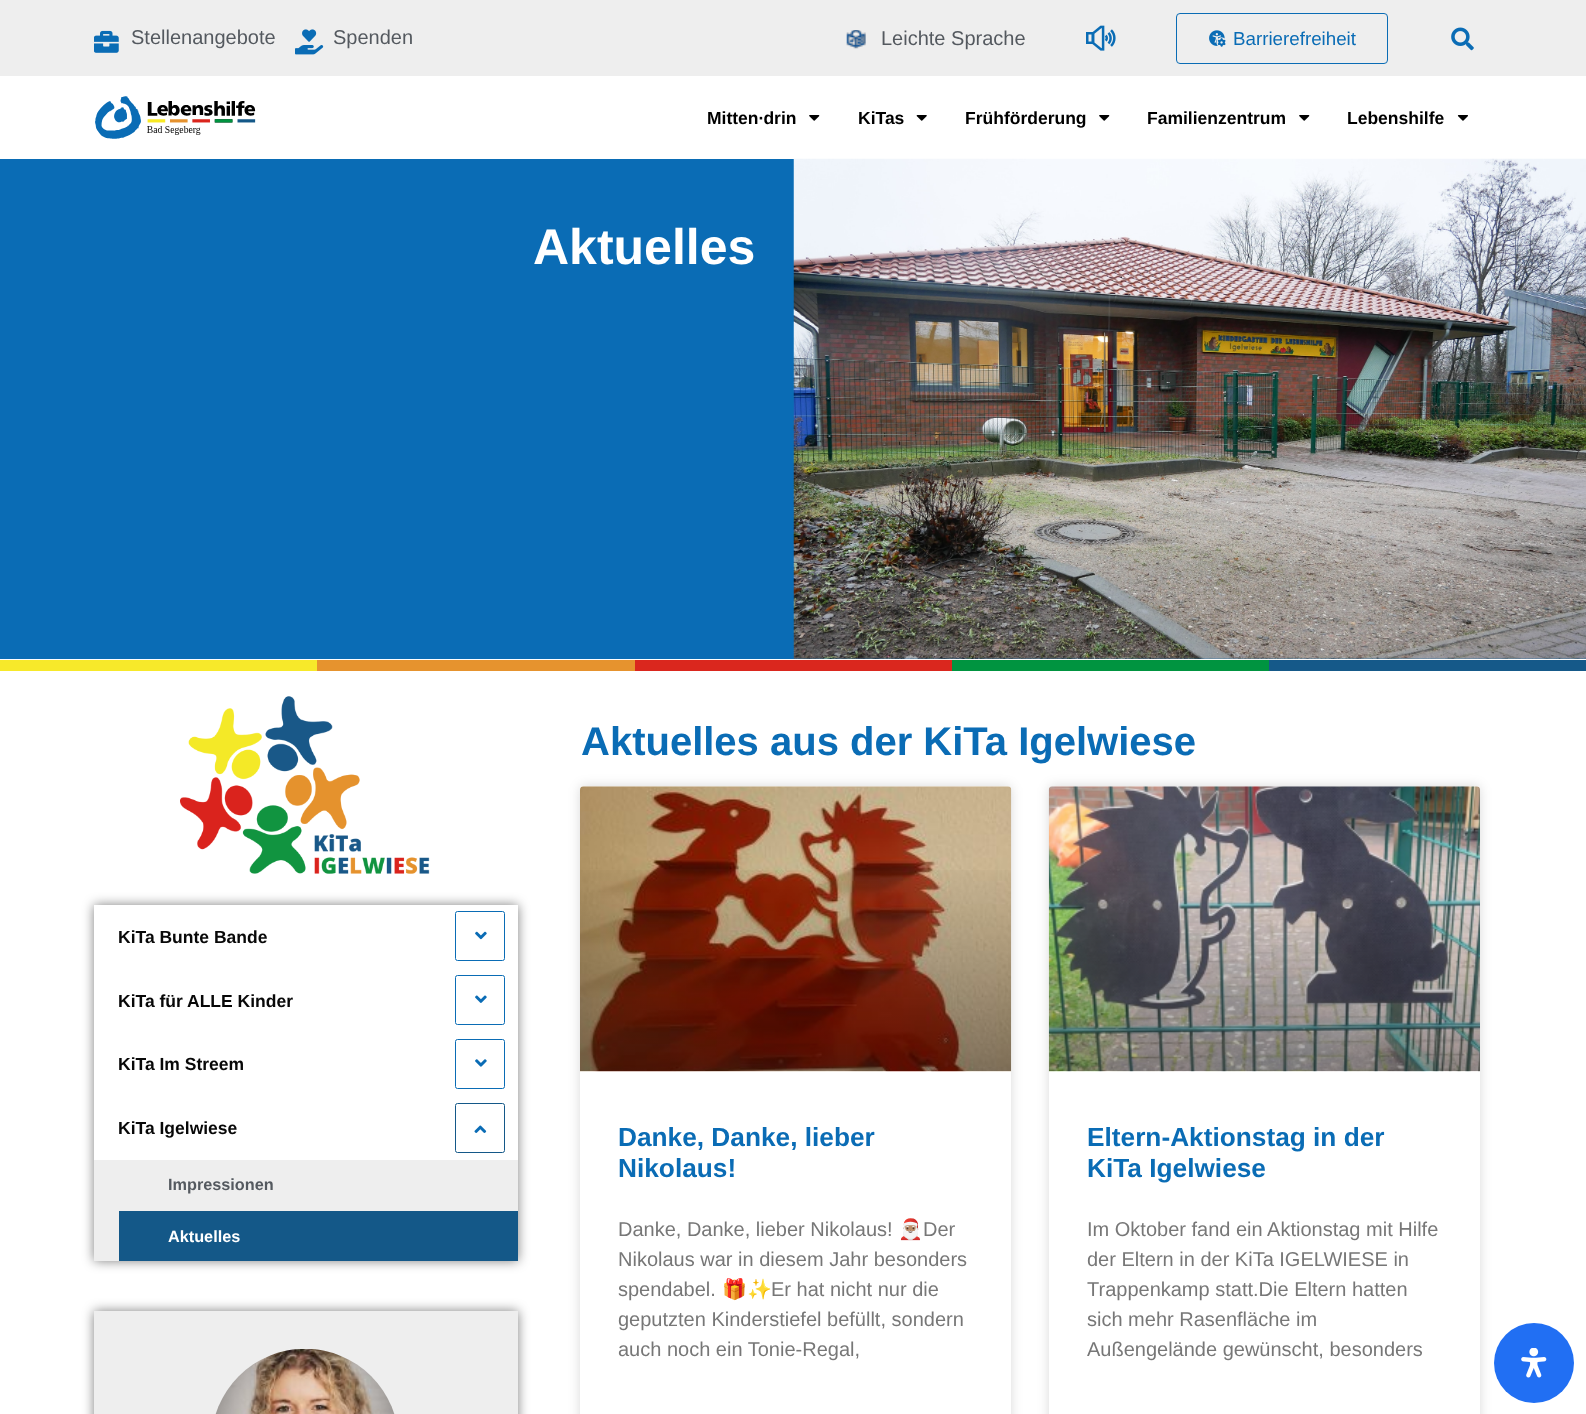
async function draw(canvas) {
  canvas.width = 1586
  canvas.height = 1414
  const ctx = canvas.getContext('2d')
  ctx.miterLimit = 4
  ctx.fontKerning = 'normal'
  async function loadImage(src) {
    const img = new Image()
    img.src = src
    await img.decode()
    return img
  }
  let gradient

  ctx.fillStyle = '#fff'
  ctx.fillRect(0, 0, 1586, 1414)
  ctx.fillStyle = '#eee'
  ctx.fillRect(0, 0, 1586, 76)
  ctx.drawImage(await loadImage('image0.png'), 94, 30, 25, 23)
  ctx.font = '20px Liberation Sans'
  ctx.fillStyle = '#54595f'
  ctx.fillText('Stellenangebote', 131, 44)
  ctx.drawImage(await loadImage('image1.png'), 295, 29, 29, 26)
  ctx.fillText('Spenden', 333, 44)
  ctx.drawImage(await loadImage('image2.png'), 846, 30, 20, 19)
  ctx.fillText('Leichte Sprache', 881, 45)
  ctx.drawImage(await loadImage('image3.png'), 1086, 25, 30, 26)
  ctx.beginPath()
  ctx.roundRect(1176.5, 13.5, 211, 50, 3.5)
  ctx.strokeStyle = '#0a6cb5'
  ctx.stroke()
  ctx.drawImage(await loadImage('image4.png'), 1209, 30, 17, 17)
  ctx.font = '18.75px Liberation Sans'
  ctx.fillStyle = '#0a6cb5'
  ctx.fillText('Barrierefreiheit', 1233, 45)
  ctx.drawImage(await loadImage('image5.png'), 1451, 27, 23, 24)
  ctx.drawImage(await loadImage('image6.png'), 95, 96, 161, 43)
  ctx.font = 'bold 17.5px Liberation Sans'
  ctx.fillStyle = '#000'
  ctx.fillText('Mitten∙drin', 707, 124)
  ctx.drawImage(await loadImage('image7.png'), 809, 115, 11, 6)
  ctx.fillText('KiTas', 858, 124)
  ctx.drawImage(await loadImage('image8.png'), 916, 115, 11, 6)
  ctx.fillText('Frühförderung', 965, 124)
  ctx.drawImage(await loadImage('image7.png'), 1099, 115, 11, 6)
  ctx.fillText('Familienzentrum', 1147, 124)
  ctx.drawImage(await loadImage('image7.png'), 1299, 115, 11, 6)
  ctx.fillText('Lebenshilfe', 1347, 124)
  ctx.drawImage(await loadImage('image9.png'), 1457, 115, 11, 6)
  ctx.fillStyle = '#0a6cb5'
  ctx.fillRect(0, 159, 1586, 500)
  ctx.font = 'bold 50px Liberation Sans'
  ctx.fillStyle = '#fff'
  ctx.fillText('Aktuelles', 533, 264)
  ctx.drawImage(await loadImage('image10.png'), 793, 158, 793, 501)
  ctx.fillStyle = '#f7e92a'
  ctx.fillRect(0, 660, 317, 11)
  ctx.fillStyle = '#155989'
  ctx.fillRect(1269, 660, 317, 11)
  ctx.fillStyle = '#e6932e'
  ctx.fillRect(317, 660, 318, 11)
  ctx.fillStyle = '#da271e'
  ctx.fillRect(635, 660, 317, 11)
  ctx.fillStyle = '#009440'
  ctx.fillRect(952, 660, 317, 11)
  ctx.drawImage(await loadImage('image11.png'), 180, 696, 250, 178)
  ctx.fillStyle = '#00000080'
  ctx.filter = 'blur(6px)'
  ctx.beginPath()
  ctx.rect(94, 905, 424, 356)
  ctx.fill()
  ctx.filter = 'none'
  ctx.fillStyle = '#fff'
  ctx.fillRect(94, 905, 424, 255)
  ctx.font = 'bold 17.5px Liberation Sans'
  ctx.fillStyle = '#080808'
  ctx.fillText('KiTa Bunte Bande', 118, 943)
  ctx.beginPath()
  ctx.roundRect(455.5, 911.5, 49, 49, 2)
  ctx.stroke()
  ctx.drawImage(await loadImage('image12.png'), 475, 931, 12, 9)
  ctx.fillText('KiTa für ALLE Kinder', 118, 1007)
  ctx.beginPath()
  ctx.roundRect(455.5, 975.5, 49, 49, 2)
  ctx.stroke()
  ctx.drawImage(await loadImage('image13.png'), 475, 995, 12, 8)
  ctx.fillText('KiTa Im Streem', 118, 1070)
  ctx.beginPath()
  ctx.roundRect(455.5, 1039.5, 49, 49, 2)
  ctx.stroke()
  ctx.drawImage(await loadImage('image14.png'), 475, 1059, 12, 8)
  ctx.fillText('KiTa Igelwiese', 118, 1134)
  ctx.beginPath()
  ctx.roundRect(455.5, 1103.5, 49, 49, 2)
  ctx.strokeStyle = '#145888'
  ctx.stroke()
  ctx.drawImage(await loadImage('image15.png'), 474, 1125, 13, 8)
  ctx.fillStyle = '#eee'
  ctx.fillRect(94, 1160, 424, 101)
  ctx.font = 'bold 16.25px Liberation Sans'
  ctx.fillStyle = '#54595f'
  ctx.fillText('Impressionen', 168, 1190)
  ctx.fillStyle = '#145888'
  ctx.fillRect(119, 1211, 399, 50)
  ctx.fillStyle = '#fff'
  ctx.fillText('Aktuelles', 168, 1242)
  ctx.fillStyle = '#00000080'
  ctx.filter = 'blur(6px)'
  ctx.beginPath()
  ctx.rect(94, 1311, 424, 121)
  ctx.fill()
  ctx.filter = 'none'
  ctx.fillStyle = '#eee'
  ctx.fillRect(94, 1311, 424, 103)
  ctx.drawImage(await loadImage('image16.png'), 215, 1349, 180, 65)
  ctx.font = 'bold 40px Liberation Sans'
  ctx.fillStyle = '#0a6cb5'
  ctx.fillText('Aktuelles aus der KiTa Igelwiese', 581, 755)
  ctx.fillStyle = '#00000026'
  ctx.filter = 'blur(6px)'
  ctx.beginPath()
  ctx.roundRect(580, 786, 431, 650, 4)
  ctx.fill()
  ctx.filter = 'none'
  ctx.fillStyle = '#fff'
  ctx.beginPath()
  ctx.roundRect(580, 786, 431, 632, 4)
  ctx.fill()
  ctx.drawImage(await loadImage('image17.png'), 580, 786, 432, 286)
  gradient = ctx.createLinearGradient(796, 1071, 796, 786)
  gradient.addColorStop(0, '#00000059')
  gradient.addColorStop(0.75, '#00000000')
  ctx.fillStyle = gradient
  ctx.fillRect(580, 870, 431, 201)
  ctx.font = 'bold 26.25px Liberation Sans'
  ctx.fillStyle = '#0a6cb5'
  ctx.fillText('Danke, Danke, lieber', 618, 1146)
  ctx.fillText('Nikolaus!', 618, 1177)
  ctx.font = '20px Liberation Sans'
  ctx.fillStyle = '#777'
  ctx.fillText('Danke, Danke, lieber Nikolaus!', 618, 1236)
  ctx.font = '20px Noto Color Emoji'
  ctx.fillText('🎅🏽', 898, 1236)
  ctx.font = '20px Liberation Sans'
  ctx.fillText('Der', 923, 1236)
  ctx.fillText('Nikolaus war in diesem Jahr besonders', 618, 1266)
  ctx.fillText('spendabel.', 618, 1296)
  ctx.font = '20px Noto Color Emoji'
  ctx.fillText('🎁✨', 722, 1296)
  ctx.font = '20px Liberation Sans'
  ctx.fillText('Er hat nicht nur die', 771, 1296)
  ctx.fillText('geputzten Kinderstiefel befüllt, sondern', 618, 1326)
  ctx.fillText('auch noch ein Tonie-Regal,', 618, 1356)
  ctx.fillStyle = '#00000026'
  ctx.filter = 'blur(6px)'
  ctx.beginPath()
  ctx.roundRect(1049, 786, 431, 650, 4)
  ctx.fill()
  ctx.filter = 'none'
  ctx.fillStyle = '#fff'
  ctx.beginPath()
  ctx.roundRect(1049, 786, 431, 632, 4)
  ctx.fill()
  ctx.drawImage(await loadImage('image18.png'), 1048, 786, 432, 286)
  gradient = ctx.createLinearGradient(1264, 1071, 1264, 786)
  gradient.addColorStop(0, '#00000059')
  gradient.addColorStop(0.75, '#00000000')
  ctx.fillStyle = gradient
  ctx.fillRect(1049, 870, 431, 201)
  ctx.font = 'bold 26.25px Liberation Sans'
  ctx.fillStyle = '#0a6cb5'
  ctx.fillText('Eltern-Aktionstag in der', 1087, 1146)
  ctx.fillText('KiTa Igelwiese', 1087, 1177)
  ctx.font = '20px Liberation Sans'
  ctx.fillStyle = '#777'
  ctx.fillText('Im Oktober fand ein Aktionstag mit Hilfe', 1087, 1236)
  ctx.fillText('der Eltern in der KiTa IGELWIESE in', 1087, 1266)
  ctx.fillText('Trappenkamp statt.Die Eltern hatten', 1087, 1296)
  ctx.fillText('sich mehr Rasenfläche im', 1087, 1326)
  ctx.fillText('Außengelände gewünscht, besonders', 1087, 1356)
  ctx.fillStyle = '#216ff3'
  ctx.beginPath()
  ctx.arc(1534, 1363, 40, 0, 2 * Math.PI)
  ctx.fill()
  ctx.drawImage(await loadImage('image19.png'), 1521, 1348, 26, 30)
}

draw(document.querySelector('canvas'))
